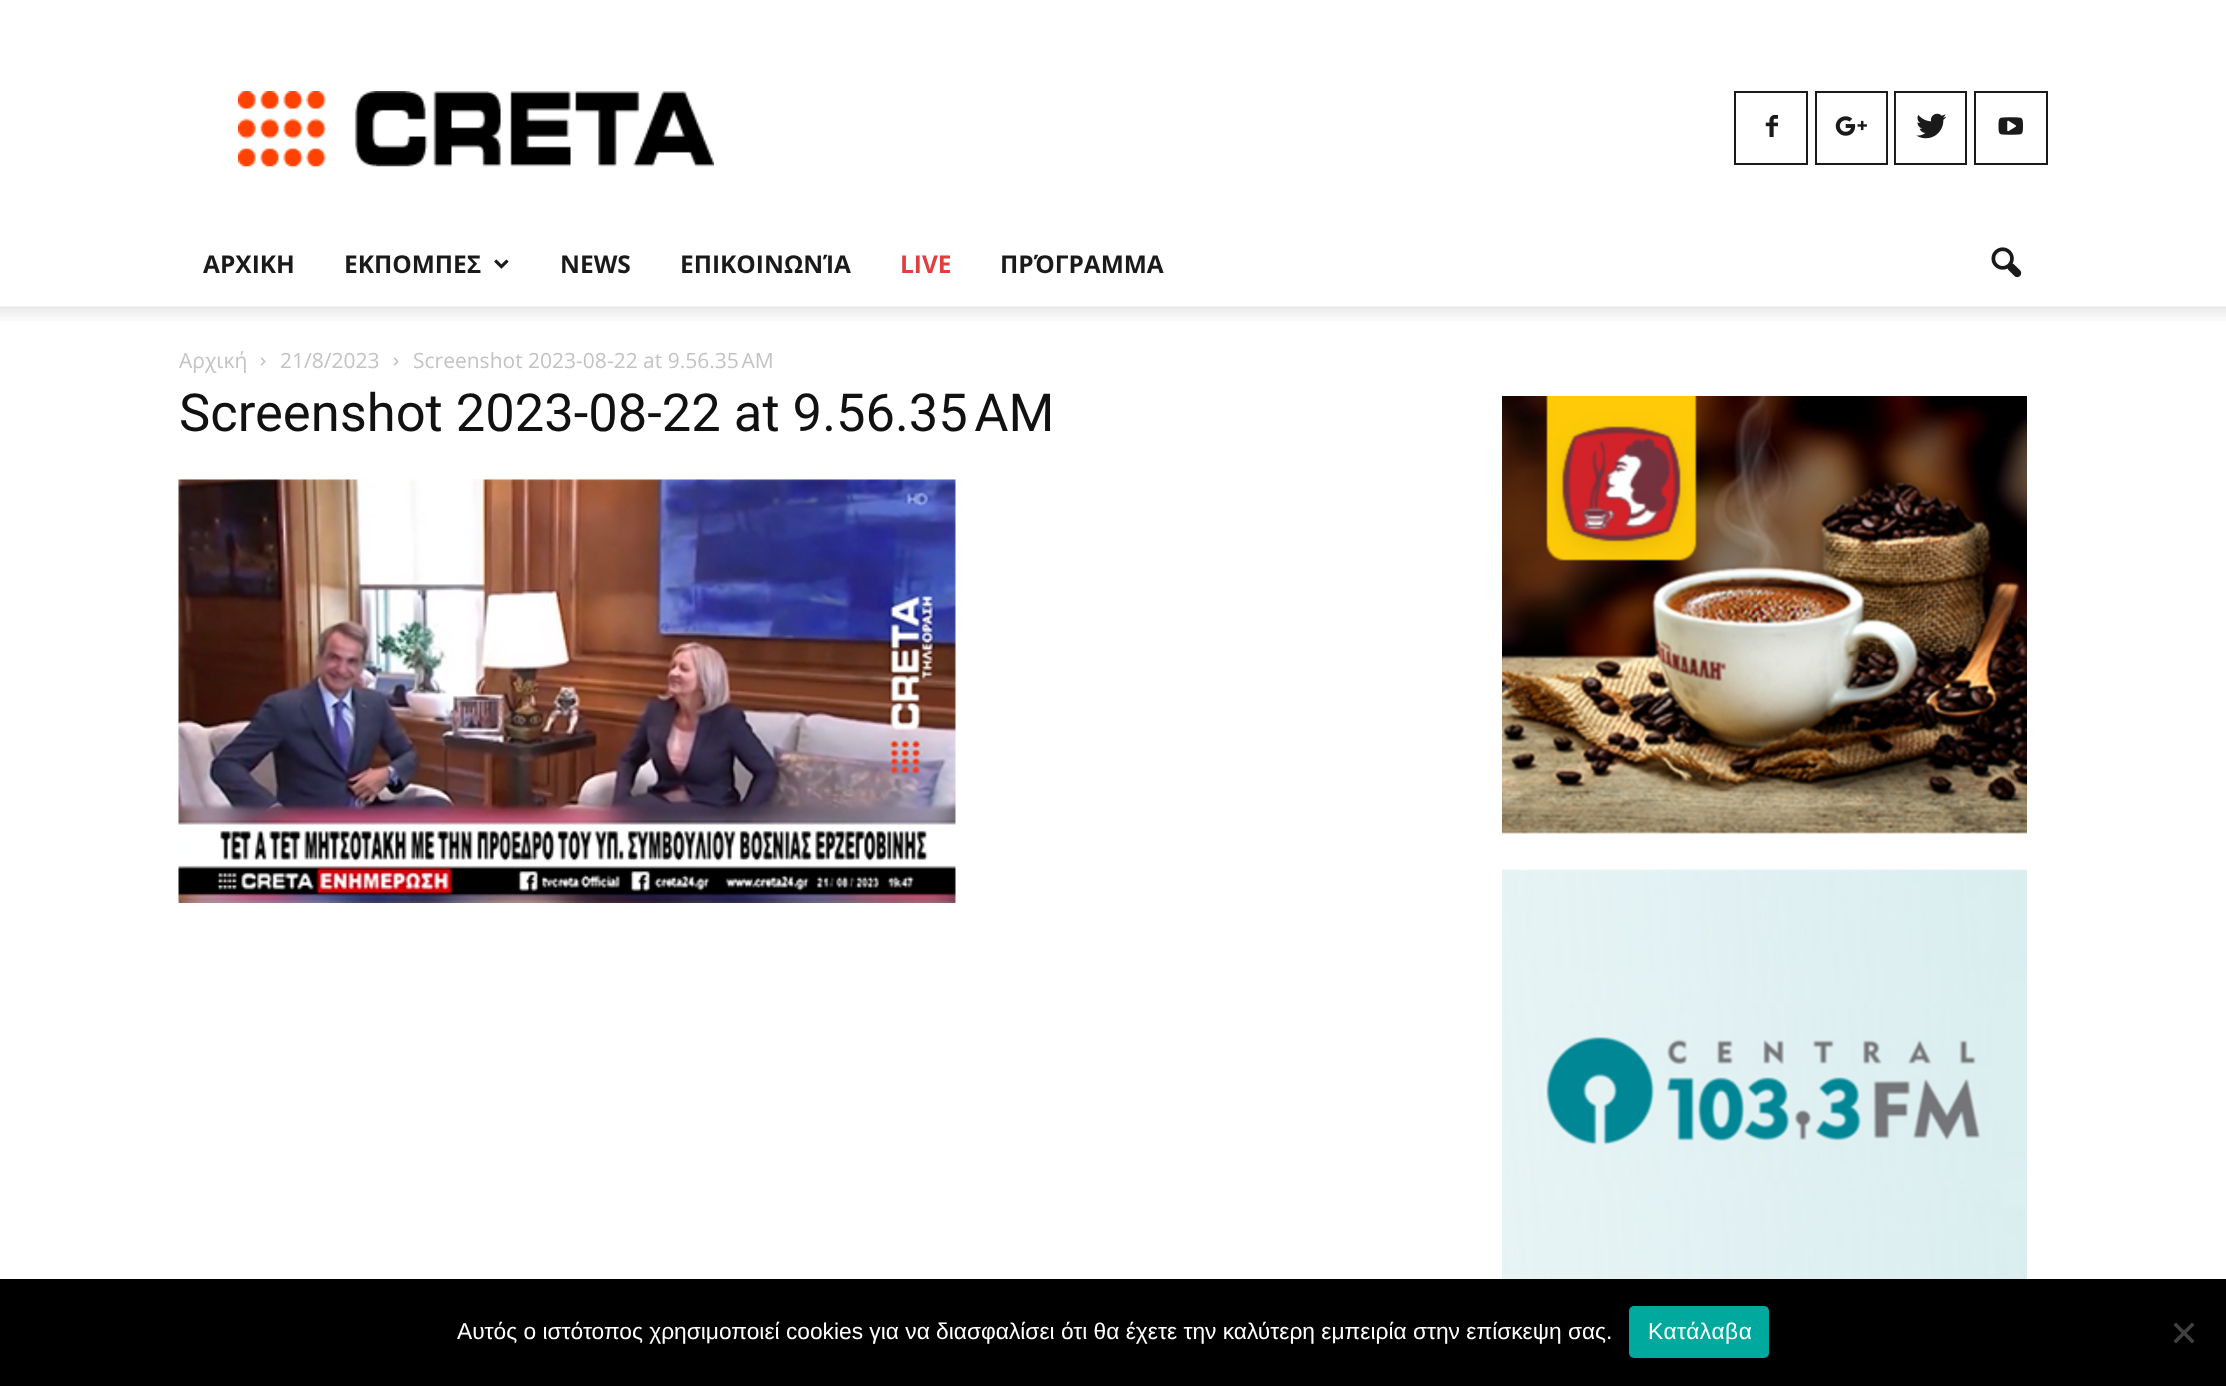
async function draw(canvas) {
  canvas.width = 2226
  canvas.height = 1386
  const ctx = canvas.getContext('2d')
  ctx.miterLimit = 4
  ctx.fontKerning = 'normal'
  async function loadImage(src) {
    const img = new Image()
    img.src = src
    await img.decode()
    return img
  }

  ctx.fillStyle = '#fff'
  ctx.fillRect(0, 0, 2226, 1386)
  ctx.drawImage(await loadImage('image0.png'), 238, 91, 476, 76)
  ctx.strokeStyle = '#1a1a1a'
  ctx.lineWidth = 2
  ctx.strokeRect(1735, 92, 72, 72)
  ctx.drawImage(await loadImage('image1.png'), 1765, 115, 13, 22)
  ctx.strokeRect(1816, 92, 71, 72)
  ctx.fillStyle = '#ffffff08'
  ctx.fillRect(1886, 93, 1, 70)
  ctx.drawImage(await loadImage('image2.png'), 1835, 116, 32, 20)
  ctx.strokeRect(1895, 92, 71, 72)
  ctx.fillRect(1895, 93, 1, 70)
  ctx.drawImage(await loadImage('image3.png'), 1916, 113, 31, 26)
  ctx.strokeRect(1975, 92, 72, 72)
  ctx.drawImage(await loadImage('image4.png'), 1998, 117, 25, 18)
  ctx.font = 'bold 24.5px Open Sans'
  ctx.fillStyle = '#1a1a1a'
  ctx.fillText('ΑΡΧΙΚΗ', 203, 273)
  ctx.fillText('ΕΚΠΟΜΠΕΣ', 344, 273)
  ctx.drawImage(await loadImage('image5.png'), 494, 259, 15, 10)
  ctx.fillText('NEWS', 560, 273)
  ctx.fillText('ΕΠΙΚΟΙΝΩΝΊΑ', 680, 273)
  ctx.fillStyle = '#df3f3f'
  ctx.fillText('LIVE', 900, 273)
  ctx.fillStyle = '#1a1a1a'
  ctx.fillText('ΠΡΌΓΡΑΜΜΑ', 1000, 273)
  ctx.drawImage(await loadImage('image6.png'), 1991, 247, 31, 31)
  ctx.drawImage(await loadImage('image7.png'), 0, 306, 2226, 15)
  ctx.font = '21px Open Sans'
  ctx.fillStyle = '#c3c3c3'
  ctx.fillText('Αρχική', 179, 368)
  ctx.drawImage(await loadImage('image8.png'), 260, 357, 6, 9)
  ctx.fillText('21/8/2023', 280, 368)
  ctx.drawImage(await loadImage('image8.png'), 393, 357, 6, 9)
  ctx.fillText('Screenshot 2023-08-22 at 9.56.35 AM', 413, 368)
  ctx.font = '52.5px Roboto'
  ctx.fillStyle = '#111'
  ctx.fillText('Screenshot 2023-08-22 at 9.56.35 AM', 179, 431)
  ctx.drawImage(await loadImage('image9.png'), 178, 479, 778, 424)
  ctx.drawImage(await loadImage('image10.png'), 1502, 396, 525, 438)
  ctx.drawImage(await loadImage('image11.png'), 1502, 869, 525, 410)
  ctx.fillStyle = '#000'
  ctx.fillRect(0, 1279, 2226, 107)
  ctx.font = '22.75px Liberation Sans'
  ctx.fillStyle = '#fff'
  ctx.fillText('Αυτός ο ιστότοπος χρησιμοποιεί cookies για να διασφαλίσει ότι θα έχετε την καλύτερη εμπειρία στην επίσκεψη σας.', 457, 1339)
  ctx.fillStyle = '#00a99d'
  ctx.beginPath()
  ctx.roundRect(1629, 1306, 140, 52, 5)
  ctx.fill()
  ctx.letterSpacing = '0.5px'
  ctx.fillStyle = '#fff'
  ctx.fillText('Κατάλαβα', 1648, 1339)
  ctx.fillStyle = '#404040'
  ctx.beginPath()
  ctx.moveTo(2192, 1322.5)
  ctx.lineTo(2194.5, 1325)
  ctx.lineTo(2176, 1343.5)
  ctx.lineTo(2173.5, 1341)
  ctx.closePath()
  ctx.fill()
  ctx.beginPath()
  ctx.moveTo(2173.5, 1325)
  ctx.lineTo(2176, 1322.5)
  ctx.lineTo(2194.5, 1341)
  ctx.lineTo(2192, 1343.5)
  ctx.closePath()
  ctx.fill()
}

draw(document.querySelector('canvas'))
